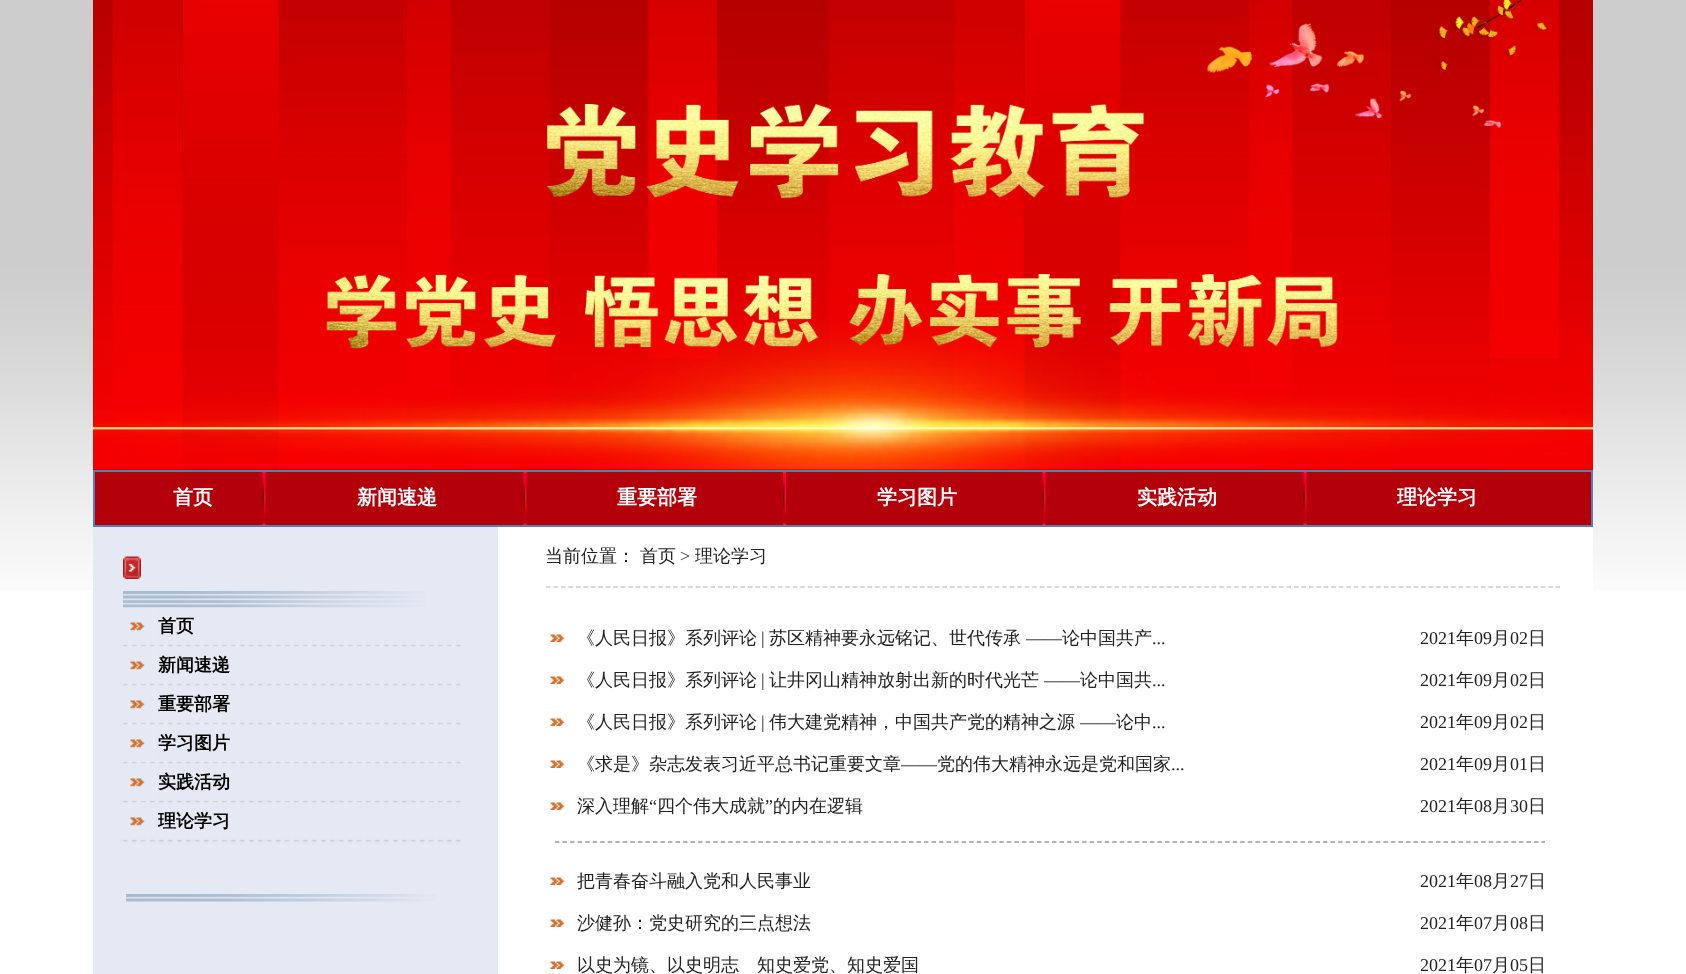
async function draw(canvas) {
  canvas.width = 1686
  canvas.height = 974
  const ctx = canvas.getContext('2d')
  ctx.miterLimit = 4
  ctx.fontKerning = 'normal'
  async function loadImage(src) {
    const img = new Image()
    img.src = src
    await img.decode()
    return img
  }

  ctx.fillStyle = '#fff'
  ctx.fillRect(0, 0, 1686, 974)
  ctx.drawImage(await loadImage('image0.png'), 0, 0, 1686, 590)
  ctx.fillStyle = '#b4000a'
  ctx.fillRect(93, 469, 1500, 56)
  ctx.drawImage(await loadImage('image1.png'), 93, 0, 1500, 470)
  ctx.strokeStyle = '#5282b5'
  ctx.lineWidth = 2
  ctx.strokeRect(94, 471, 1498, 55)
  ctx.font = 'bold 20px WenQuanYi Zen Hei'
  ctx.fillStyle = '#fff'
  ctx.fillText('首页', 173, 504)
  ctx.drawImage(await loadImage('image2.png'), 262, 471, 4, 54)
  ctx.fillText('新闻速递', 357, 504)
  ctx.drawImage(await loadImage('image2.png'), 523, 471, 4, 54)
  ctx.fillText('重要部署', 617, 504)
  ctx.drawImage(await loadImage('image3.png'), 783, 471, 3, 54)
  ctx.fillText('学习图片', 877, 504)
  ctx.drawImage(await loadImage('image2.png'), 1042, 471, 4, 54)
  ctx.fillText('实践活动', 1137, 504)
  ctx.drawImage(await loadImage('image2.png'), 1303, 471, 4, 54)
  ctx.fillText('理论学习', 1397, 504)
  ctx.fillRect(498, 527, 1095, 63)
  ctx.fillStyle = '#e5e9f4'
  ctx.fillRect(93, 527, 405, 447)
  ctx.drawImage(await loadImage('image4.png'), 123, 591, 302, 17)
  ctx.drawImage(await loadImage('image5.png'), 123, 556, 18, 23)
  ctx.drawImage(await loadImage('image6.png'), 123, 607, 338, 40)
  ctx.font = 'bold 18px WenQuanYi Zen Hei'
  ctx.fillStyle = '#000'
  ctx.fillText('首页', 158, 632)
  ctx.drawImage(await loadImage('image7.png'), 123, 646, 338, 40)
  ctx.fillText('新闻速递', 158, 671)
  ctx.drawImage(await loadImage('image7.png'), 123, 685, 338, 40)
  ctx.fillText('重要部署', 158, 710)
  ctx.drawImage(await loadImage('image7.png'), 123, 724, 338, 40)
  ctx.fillText('学习图片', 158, 749)
  ctx.drawImage(await loadImage('image7.png'), 123, 763, 338, 40)
  ctx.fillText('实践活动', 158, 788)
  ctx.drawImage(await loadImage('image7.png'), 123, 802, 338, 40)
  ctx.fillText('理论学习', 158, 827)
  ctx.drawImage(await loadImage('image8.png'), 126, 894, 310, 8)
  ctx.beginPath()
  ctx.moveTo(546, 587)
  ctx.lineTo(1560, 587)
  ctx.strokeStyle = '#ccc'
  ctx.lineWidth = 1.5
  ctx.setLineDash([4.5, 2.98])
  ctx.stroke()
  ctx.font = '500 18px WenQuanYi Zen Hei'
  ctx.fillStyle = '#222'
  ctx.fillText('当前位置：', 545, 562)
  ctx.fillText('首页', 640, 562)
  ctx.font = '18px Liberation Serif'
  ctx.fillText('>', 680, 562)
  ctx.font = '500 18px WenQuanYi Zen Hei'
  ctx.fillText('理论学习', 695, 562)
  ctx.drawImage(await loadImage('image9.png'), 550, 634, 15, 8)
  ctx.fillText('《人民日报》系列评论', 577, 644)
  ctx.font = '18px Liberation Serif'
  ctx.fillText('|', 761, 644)
  ctx.font = '500 18px WenQuanYi Zen Hei'
  ctx.fillText('苏区精神要永远铭记、世代传承', 769, 644)
  ctx.font = '18px Liberation Serif'
  ctx.fillText('——', 1026, 644)
  ctx.font = '500 18px WenQuanYi Zen Hei'
  ctx.fillText('论中国共产', 1062, 644)
  ctx.font = '18px Liberation Serif'
  ctx.fillText('...', 1152, 644)
  ctx.fillText('2021', 1420, 644)
  ctx.font = '500 18px WenQuanYi Zen Hei'
  ctx.fillText('年', 1456, 644)
  ctx.font = '18px Liberation Serif'
  ctx.fillText('09', 1474, 644)
  ctx.font = '500 18px WenQuanYi Zen Hei'
  ctx.fillText('月', 1492, 644)
  ctx.font = '18px Liberation Serif'
  ctx.fillText('02', 1510, 644)
  ctx.font = '500 18px WenQuanYi Zen Hei'
  ctx.fillText('日', 1528, 644)
  ctx.drawImage(await loadImage('image9.png'), 550, 676, 15, 8)
  ctx.fillText('《人民日报》系列评论', 577, 686)
  ctx.font = '18px Liberation Serif'
  ctx.fillText('|', 761, 686)
  ctx.font = '500 18px WenQuanYi Zen Hei'
  ctx.fillText('让井冈山精神放射出新的时代光芒', 769, 686)
  ctx.font = '18px Liberation Serif'
  ctx.fillText('——', 1044, 686)
  ctx.font = '500 18px WenQuanYi Zen Hei'
  ctx.fillText('论中国共', 1080, 686)
  ctx.font = '18px Liberation Serif'
  ctx.fillText('...', 1152, 686)
  ctx.fillText('2021', 1420, 686)
  ctx.font = '500 18px WenQuanYi Zen Hei'
  ctx.fillText('年', 1456, 686)
  ctx.font = '18px Liberation Serif'
  ctx.fillText('09', 1474, 686)
  ctx.font = '500 18px WenQuanYi Zen Hei'
  ctx.fillText('月', 1492, 686)
  ctx.font = '18px Liberation Serif'
  ctx.fillText('02', 1510, 686)
  ctx.font = '500 18px WenQuanYi Zen Hei'
  ctx.fillText('日', 1528, 686)
  ctx.drawImage(await loadImage('image9.png'), 550, 718, 15, 8)
  ctx.fillText('《人民日报》系列评论', 577, 728)
  ctx.font = '18px Liberation Serif'
  ctx.fillText('|', 761, 728)
  ctx.font = '500 18px WenQuanYi Zen Hei'
  ctx.fillText('伟大建党精神，中国共产党的精神之源', 769, 728)
  ctx.font = '18px Liberation Serif'
  ctx.fillText('——', 1080, 728)
  ctx.font = '500 18px WenQuanYi Zen Hei'
  ctx.fillText('论中', 1116, 728)
  ctx.font = '18px Liberation Serif'
  ctx.fillText('...', 1152, 728)
  ctx.fillText('2021', 1420, 728)
  ctx.font = '500 18px WenQuanYi Zen Hei'
  ctx.fillText('年', 1456, 728)
  ctx.font = '18px Liberation Serif'
  ctx.fillText('09', 1474, 728)
  ctx.font = '500 18px WenQuanYi Zen Hei'
  ctx.fillText('月', 1492, 728)
  ctx.font = '18px Liberation Serif'
  ctx.fillText('02', 1510, 728)
  ctx.font = '500 18px WenQuanYi Zen Hei'
  ctx.fillText('日', 1528, 728)
  ctx.drawImage(await loadImage('image9.png'), 550, 760, 15, 8)
  ctx.fillText('《求是》杂志发表习近平总书记重要文章', 577, 770)
  ctx.font = '18px Liberation Serif'
  ctx.fillText('——', 901, 770)
  ctx.font = '500 18px WenQuanYi Zen Hei'
  ctx.fillText('党的伟大精神永远是党和国家', 937, 770)
  ctx.font = '18px Liberation Serif'
  ctx.fillText('...', 1171, 770)
  ctx.fillText('2021', 1420, 770)
  ctx.font = '500 18px WenQuanYi Zen Hei'
  ctx.fillText('年', 1456, 770)
  ctx.font = '18px Liberation Serif'
  ctx.fillText('09', 1474, 770)
  ctx.font = '500 18px WenQuanYi Zen Hei'
  ctx.fillText('月', 1492, 770)
  ctx.font = '18px Liberation Serif'
  ctx.fillText('01', 1510, 770)
  ctx.font = '500 18px WenQuanYi Zen Hei'
  ctx.fillText('日', 1528, 770)
  ctx.drawImage(await loadImage('image9.png'), 550, 802, 15, 8)
  ctx.fillText('深入理解', 577, 812)
  ctx.font = '18px Liberation Serif'
  ctx.fillText('“', 649, 812)
  ctx.font = '500 18px WenQuanYi Zen Hei'
  ctx.fillText('四个伟大成就', 657, 812)
  ctx.font = '18px Liberation Serif'
  ctx.fillText('”', 765, 812)
  ctx.font = '500 18px WenQuanYi Zen Hei'
  ctx.fillText('的内在逻辑', 773, 812)
  ctx.font = '18px Liberation Serif'
  ctx.fillText('2021', 1420, 812)
  ctx.font = '500 18px WenQuanYi Zen Hei'
  ctx.fillText('年', 1456, 812)
  ctx.font = '18px Liberation Serif'
  ctx.fillText('08', 1474, 812)
  ctx.font = '500 18px WenQuanYi Zen Hei'
  ctx.fillText('月', 1492, 812)
  ctx.font = '18px Liberation Serif'
  ctx.fillText('30', 1510, 812)
  ctx.font = '500 18px WenQuanYi Zen Hei'
  ctx.fillText('日', 1528, 812)
  ctx.beginPath()
  ctx.moveTo(555, 842)
  ctx.lineTo(1545, 842)
  ctx.strokeStyle = '#999'
  ctx.setLineDash([4.5, 3.03])
  ctx.stroke()
  ctx.drawImage(await loadImage('image9.png'), 550, 877, 15, 8)
  ctx.fillText('把青春奋斗融入党和人民事业', 577, 887)
  ctx.font = '18px Liberation Serif'
  ctx.fillText('2021', 1420, 887)
  ctx.font = '500 18px WenQuanYi Zen Hei'
  ctx.fillText('年', 1456, 887)
  ctx.font = '18px Liberation Serif'
  ctx.fillText('08', 1474, 887)
  ctx.font = '500 18px WenQuanYi Zen Hei'
  ctx.fillText('月', 1492, 887)
  ctx.font = '18px Liberation Serif'
  ctx.fillText('27', 1510, 887)
  ctx.font = '500 18px WenQuanYi Zen Hei'
  ctx.fillText('日', 1528, 887)
  ctx.drawImage(await loadImage('image9.png'), 550, 919, 15, 8)
  ctx.fillText('沙健孙：党史研究的三点想法', 577, 929)
  ctx.font = '18px Liberation Serif'
  ctx.fillText('2021', 1420, 929)
  ctx.font = '500 18px WenQuanYi Zen Hei'
  ctx.fillText('年', 1456, 929)
  ctx.font = '18px Liberation Serif'
  ctx.fillText('07', 1474, 929)
  ctx.font = '500 18px WenQuanYi Zen Hei'
  ctx.fillText('月', 1492, 929)
  ctx.font = '18px Liberation Serif'
  ctx.fillText('08', 1510, 929)
  ctx.font = '500 18px WenQuanYi Zen Hei'
  ctx.fillText('日', 1528, 929)
  ctx.drawImage(await loadImage('image9.png'), 550, 961, 15, 8)
  ctx.fillText('以史为镜、以史明志　知史爱党、知史爱国', 577, 971)
  ctx.font = '18px Liberation Serif'
  ctx.fillText('2021', 1420, 971)
  ctx.font = '500 18px WenQuanYi Zen Hei'
  ctx.fillText('年', 1456, 971)
  ctx.font = '18px Liberation Serif'
  ctx.fillText('07', 1474, 971)
  ctx.font = '500 18px WenQuanYi Zen Hei'
  ctx.fillText('月', 1492, 971)
  ctx.font = '18px Liberation Serif'
  ctx.fillText('05', 1510, 971)
  ctx.font = '500 18px WenQuanYi Zen Hei'
  ctx.fillText('日', 1528, 971)
}

draw(document.querySelector('canvas'))
